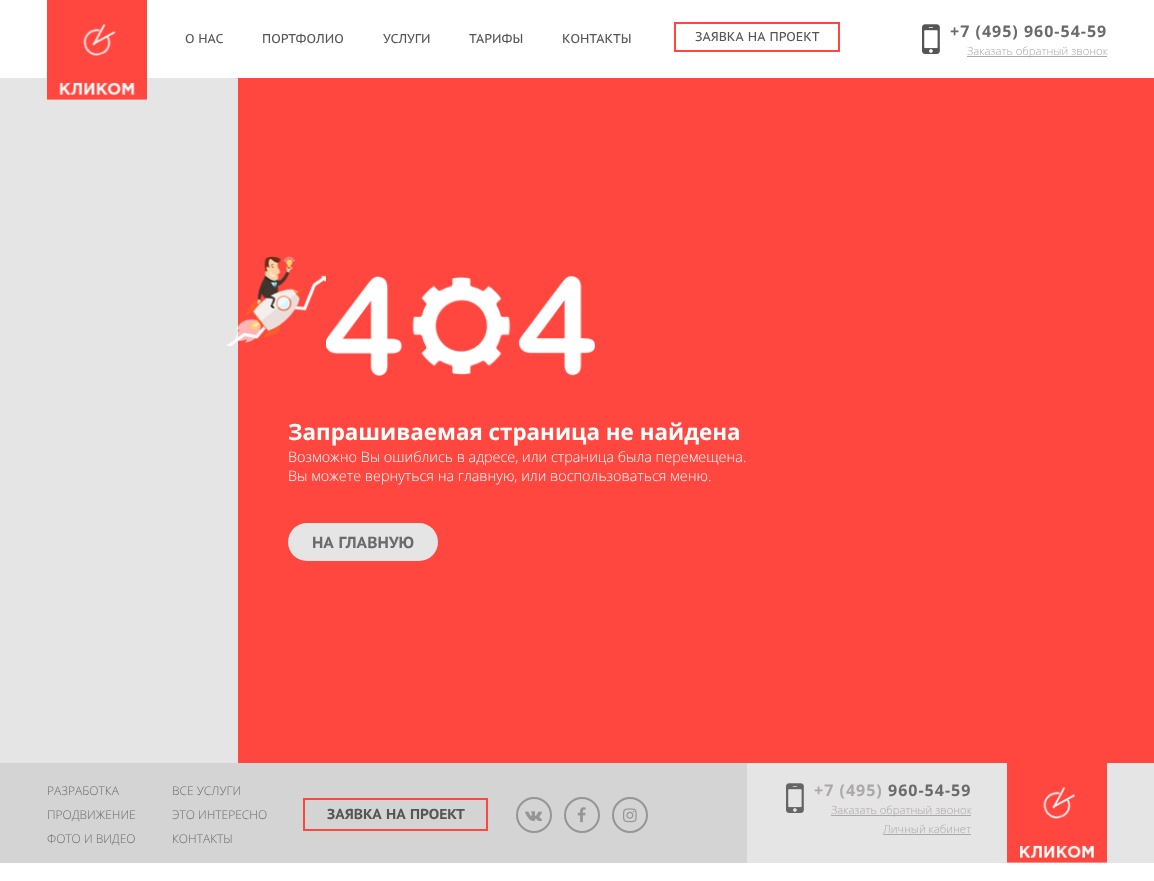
async function draw(canvas) {
  canvas.width = 1154
  canvas.height = 881
  const ctx = canvas.getContext('2d')
  ctx.miterLimit = 4
  ctx.fontKerning = 'normal'
  async function loadImage(src) {
    const img = new Image()
    img.src = src
    await img.decode()
    return img
  }

  ctx.fillStyle = '#fff'
  ctx.fillRect(0, 0, 1154, 881)
  ctx.fillStyle = '#e5e5e5'
  ctx.fillRect(0, 78, 238, 685)
  ctx.drawImage(await loadImage('image0.png'), 47, 0, 100, 100)
  ctx.font = '12.75px PT Sans Caption'
  ctx.fillStyle = '#555'
  ctx.fillText('О НАС', 185, 43)
  ctx.fillText('ПОРТФОЛИО', 262, 43)
  ctx.fillText('УСЛУГИ', 383, 43)
  ctx.fillText('ТАРИФЫ', 469, 43)
  ctx.fillText('КОНТАКТЫ', 562, 43)
  ctx.strokeStyle = '#ff473f'
  ctx.lineWidth = 2
  ctx.strokeRect(675, 23, 164, 28)
  ctx.wordSpacing = '1px'
  ctx.fillText('ЗАЯВКА НА ПРОЕКТ', 695, 41)
  ctx.drawImage(await loadImage('image1.png'), 922, 24, 18, 30)
  ctx.letterSpacing = '1px'
  ctx.wordSpacing = '0px'
  ctx.font = 'bold 16px Open Sans'
  ctx.fillStyle = '#6a6a6a'
  ctx.fillText('+7 (495) 960-54-59', 950, 37)
  ctx.fillStyle = '#aba8a8'
  ctx.fillRect(967, 56, 140, 1)
  ctx.letterSpacing = '0px'
  ctx.font = '300 11.25px Open Sans'
  ctx.fillText('Заказать обратный звонок', 967, 55)
  ctx.fillStyle = '#ff473f'
  ctx.fillRect(238, 78, 916, 685)
  ctx.drawImage(await loadImage('image2.png'), 326, 276, 269, 100)
  ctx.drawImage(await loadImage('image3.png'), 226, 256, 100, 90)
  ctx.font = 'bold 22.4px Open Sans'
  ctx.fillStyle = '#fff'
  ctx.fillText('Запрашиваемая страница не найдена', 288, 440)
  ctx.font = '300 14.4px Open Sans'
  ctx.fillText('Возможно Вы ошиблись в адресе, или страница была перемещена.', 288, 462)
  ctx.fillText('Вы можете вернуться на главную, или воспользоваться меню.', 288, 481)
  ctx.fillStyle = '#e5e5e5'
  ctx.beginPath()
  ctx.roundRect(288, 523, 150, 38, 19)
  ctx.fill()
  ctx.wordSpacing = '1px'
  ctx.font = 'bold 16px PT Sans Caption'
  ctx.fillStyle = '#6a6a6a'
  ctx.fillText('НА ГЛАВНУЮ', 312, 548)
  ctx.fillStyle = '#e5e5e5'
  ctx.fillRect(747, 763, 407, 100)
  ctx.fillStyle = '#d4d4d4'
  ctx.fillRect(0, 763, 747, 100)
  ctx.wordSpacing = '0px'
  ctx.font = '300 12px Open Sans'
  ctx.fillStyle = '#6a6a6a'
  ctx.fillText('РАЗРАБОТКА', 47, 795)
  ctx.fillText('ПРОДВИЖЕНИЕ', 47, 819)
  ctx.fillText('ФОТО И ВИДЕО', 47, 843)
  ctx.fillText('ВСЕ УСЛУГИ', 172, 795)
  ctx.fillText('ЭТО ИНТЕРЕСНО', 172, 819)
  ctx.fillText('КОНТАКТЫ', 172, 843)
  ctx.strokeRect(304, 799, 183, 31)
  ctx.wordSpacing = '1px'
  ctx.font = 'bold 14.4px PT Sans Caption'
  ctx.fillStyle = '#555'
  ctx.fillText('ЗАЯВКА НА ПРОЕКТ', 327, 819)
  ctx.beginPath()
  ctx.arc(534, 815, 17, 0, 2 * Math.PI)
  ctx.strokeStyle = '#959595'
  ctx.stroke()
  ctx.drawImage(await loadImage('image4.png'), 525, 811, 17, 10)
  ctx.beginPath()
  ctx.arc(582, 815, 17, 0, 2 * Math.PI)
  ctx.stroke()
  ctx.drawImage(await loadImage('image5.png'), 577, 807, 9, 16)
  ctx.beginPath()
  ctx.arc(630, 815, 17, 0, 2 * Math.PI)
  ctx.stroke()
  ctx.drawImage(await loadImage('image6.png'), 623, 808, 14, 15)
  ctx.drawImage(await loadImage('image7.png'), 786, 783, 18, 30)
  ctx.letterSpacing = '1px'
  ctx.wordSpacing = '0px'
  ctx.font = 'bold 16px Open Sans'
  ctx.fillStyle = '#aba8a8'
  ctx.fillText('+7 (495)', 814, 796)
  ctx.fillStyle = '#6a6a6a'
  ctx.fillText('960-54-59', 888, 796)
  ctx.fillStyle = '#aba8a8'
  ctx.fillRect(831, 815, 140, 1)
  ctx.letterSpacing = '0px'
  ctx.font = '300 11.25px Open Sans'
  ctx.fillText('Заказать обратный звонок', 831, 814)
  ctx.fillText('Личный кабинет', 883, 833)
  ctx.fillRect(883, 834, 88, 1)
  ctx.drawImage(await loadImage('image8.png'), 1007, 763, 100, 100)
}

draw(document.querySelector('canvas'))
